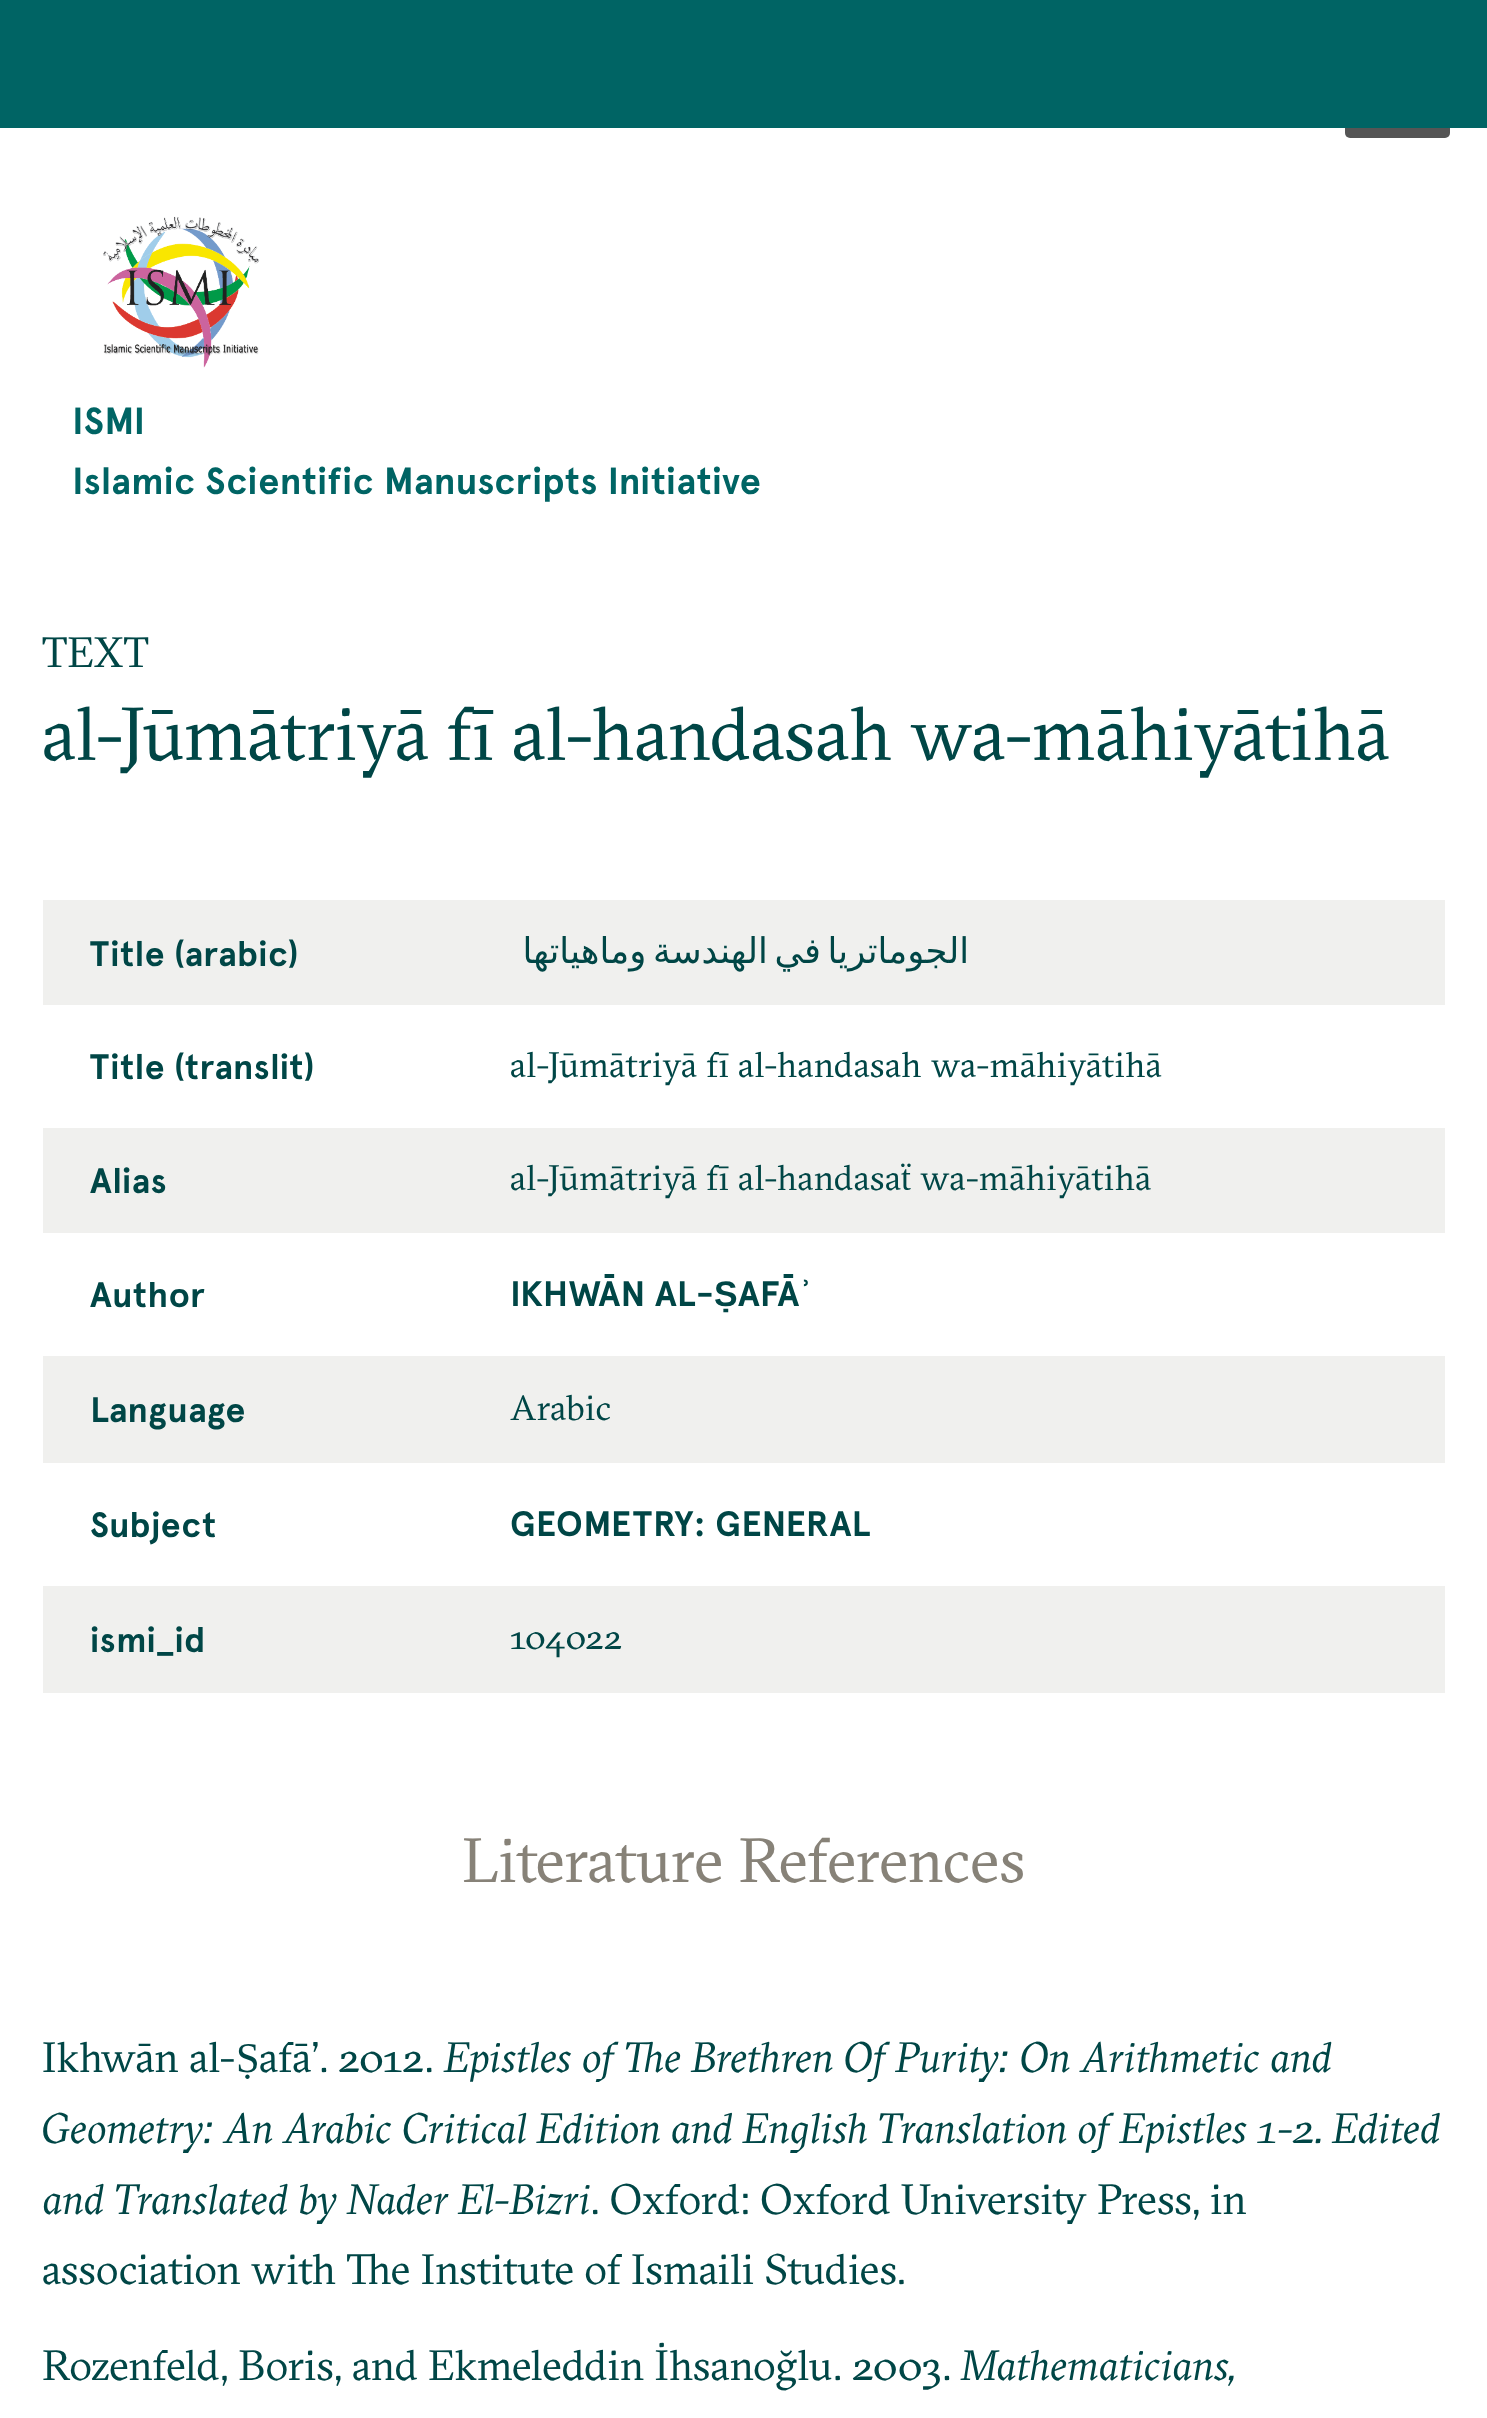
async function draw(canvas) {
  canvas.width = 1487
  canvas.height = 2418
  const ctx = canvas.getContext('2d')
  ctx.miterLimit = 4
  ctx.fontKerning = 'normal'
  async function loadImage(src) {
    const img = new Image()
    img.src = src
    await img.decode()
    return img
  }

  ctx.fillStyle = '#fff'
  ctx.fillRect(0, 0, 1487, 2418)
  ctx.fillStyle = '#555'
  ctx.beginPath()
  ctx.roundRect(1345, 38, 105, 100, 5)
  ctx.fill()
  ctx.fillStyle = '#006464'
  ctx.fillRect(0, 0, 1487, 128)
  ctx.drawImage(await loadImage('image0.png'), 103, 216, 157, 152)
  ctx.letterSpacing = '0.4px'
  ctx.font = 'bold 37.75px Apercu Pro'
  ctx.fillText('ISMI', 72, 434)
  ctx.fillText('Islamic Scientific Manuscripts Initiative', 72, 494)
  ctx.letterSpacing = '0px'
  ctx.font = '42.45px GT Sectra'
  ctx.fillStyle = '#004646'
  ctx.fillText('TEXT', 42, 667)
  ctx.font = '75px GT Sectra'
  ctx.fillText('al-Jūmātriyā fī al-handasah wa-māhiyātihā', 42, 760)
  ctx.fillStyle = '#f0f0ee'
  ctx.fillRect(43, 900, 1402, 105)
  ctx.letterSpacing = '0.4px'
  ctx.font = 'bold 35.4px Apercu Pro'
  ctx.fillStyle = '#004646'
  ctx.fillText('Title (arabic)', 90, 966)
  ctx.wordSpacing = '-5px'
  ctx.direction = 'rtl'
  ctx.font = '35.4px DejaVu Sans'
  ctx.fillText('الجوماتريا في الهندسة وماهياتها', 969, 963)
  ctx.wordSpacing = '0px'
  ctx.direction = 'ltr'
  ctx.font = 'bold 35.4px Apercu Pro'
  ctx.fillText('Title (translit)', 90, 1079)
  ctx.font = '35.4px GT Sectra'
  ctx.fillText('al-Jūmātriyā fī al-handasah wa-māhiyātihā', 510, 1077)
  ctx.fillStyle = '#f0f0ee'
  ctx.fillRect(43, 1128, 1402, 105)
  ctx.font = 'bold 35.4px Apercu Pro'
  ctx.fillStyle = '#004646'
  ctx.fillText('Alias', 90, 1193)
  ctx.font = '35.4px GT Sectra'
  ctx.fillText('al-Jūmātriyā fī al-handasaẗ wa-māhiyātihā', 510, 1190)
  ctx.font = 'bold 35.4px Apercu Pro'
  ctx.fillText('Author', 90, 1307)
  ctx.fillText('IKHWĀN AL-', 510, 1306)
  ctx.font = 'bold 35.4px Liberation Sans'
  ctx.fillText('Ṣ', 714, 1306)
  ctx.font = 'bold 35.4px Apercu Pro'
  ctx.fillText('AFĀ', 738, 1306)
  ctx.font = 'bold 35.4px Liberation Sans'
  ctx.fillText('ʾ', 800, 1306)
  ctx.fillStyle = '#f0f0ee'
  ctx.fillRect(43, 1356, 1402, 107)
  ctx.font = 'bold 35.4px Apercu Pro'
  ctx.fillStyle = '#004646'
  ctx.fillText('Language', 90, 1422)
  ctx.font = '35.4px GT Sectra'
  ctx.fillText('Arabic', 510, 1420)
  ctx.font = 'bold 35.4px Apercu Pro'
  ctx.fillText('Subject', 90, 1537)
  ctx.fillText('GEOMETRY: GENERAL', 510, 1536)
  ctx.fillStyle = '#f0f0ee'
  ctx.fillRect(43, 1586, 1402, 107)
  ctx.fillStyle = '#004646'
  ctx.fillText('ismi_id', 90, 1652)
  ctx.font = '35.4px GT Sectra'
  ctx.fillText('104022', 510, 1649)
  ctx.letterSpacing = '0px'
  ctx.font = '62.5px GT Sectra'
  ctx.fillStyle = '#878278'
  ctx.fillText('Literature References', 462, 1882)
  ctx.font = '42.45px GT Sectra'
  ctx.fillStyle = '#004646'
  ctx.fillText('Ikhwān al-', 42, 2072)
  ctx.font = '42.45px Liberation Serif'
  ctx.fillText('Ṣ', 236, 2072)
  ctx.font = '42.45px GT Sectra'
  ctx.fillText('afāʼ. 2012.', 259, 2072)
  ctx.font = 'italic 42.45px GT Sectra'
  ctx.fillText('Epistles of The Brethren Of Purity: On Arithmetic and', 444, 2072)
  ctx.fillText('Geometry: An Arabic Critical Edition and English Translation of Epistles 1-2. Edited', 42, 2143)
  ctx.fillText('and Translated by Nader El-Bizri', 42, 2214)
  ctx.font = '42.45px GT Sectra'
  ctx.fillText('. Oxford: Oxford University Press, in', 590, 2214)
  ctx.fillText('association with The Institute of Ismaili Studies.', 42, 2284)
  ctx.fillText('Rozenfeld, Boris, and Ekmeleddin İhsanoğlu. 2003.', 42, 2380)
  ctx.font = 'italic 42.45px GT Sectra'
  ctx.fillText('Mathematicians,', 961, 2380)
}

draw(document.querySelector('canvas'))
